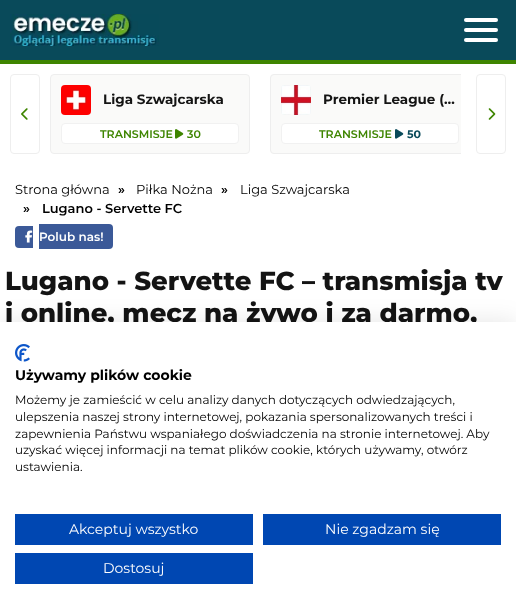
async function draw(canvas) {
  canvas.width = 516
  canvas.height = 611
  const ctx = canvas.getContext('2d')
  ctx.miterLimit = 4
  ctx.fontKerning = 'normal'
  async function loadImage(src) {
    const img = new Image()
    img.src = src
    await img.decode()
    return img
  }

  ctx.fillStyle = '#fff'
  ctx.fillRect(0, 0, 516, 611)
  ctx.fillStyle = '#094a5a'
  ctx.fillRect(0, 0, 516, 60)
  ctx.fillStyle = '#3e8500'
  ctx.fillRect(0, 60, 516, 4)
  ctx.drawImage(await loadImage('image0.png'), 10, 14, 149, 32)
  ctx.fillStyle = '#fff'
  ctx.beginPath()
  ctx.roundRect(464, 18, 34, 4, 2)
  ctx.fill()
  ctx.beginPath()
  ctx.roundRect(464, 28, 34, 4, 2)
  ctx.fill()
  ctx.beginPath()
  ctx.roundRect(464, 38, 34, 4, 2)
  ctx.fill()
  ctx.beginPath()
  ctx.roundRect(10.5, 74.5, 29, 79, 3.5)
  ctx.strokeStyle = '#eee'
  ctx.stroke()
  ctx.drawImage(await loadImage('image1.png'), 21, 108, 7, 12)
  ctx.fillStyle = '#fafaf9'
  ctx.beginPath()
  ctx.roundRect(50.5, 74.5, 199, 79, 3.5)
  ctx.fill()
  ctx.stroke()
  ctx.drawImage(await loadImage('image2.png'), 61, 85, 30, 30)
  ctx.font = 'bold 13.5px Montserrat'
  ctx.fillStyle = '#141414'
  ctx.fillText('Liga Szwajcarska', 103, 104)
  ctx.fillStyle = '#fff'
  ctx.beginPath()
  ctx.roundRect(61.5, 123.5, 177, 20, 3.5)
  ctx.fill()
  ctx.strokeStyle = '#f1f1f1'
  ctx.stroke()
  ctx.font = '600 11px Montserrat'
  ctx.fillStyle = '#3e8500'
  ctx.fillText('TRANSMISJE', 100, 138)
  ctx.drawImage(await loadImage('image3.png'), 175, 129, 9, 10)
  ctx.fillText('30', 187, 138)
  ctx.fillStyle = '#fafaf9'
  ctx.beginPath()
  ctx.roundRect(270, 74, 191, 80, [4, 0, 0, 4])
  ctx.fill()
  ctx.save()
  ctx.beginPath()
  ctx.rect(50, 64, 411, 100)
  ctx.clip()
  ctx.beginPath()
  ctx.roundRect(270.5, 74.5, 199, 79, 3.5)
  ctx.strokeStyle = '#eee'
  ctx.stroke()
  ctx.restore()
  ctx.drawImage(await loadImage('image4.png'), 281, 85, 30, 30)
  ctx.font = 'bold 13.5px Montserrat'
  ctx.fillStyle = '#141414'
  ctx.fillText('Premier League (…', 323, 104)
  ctx.fillStyle = '#fff'
  ctx.beginPath()
  ctx.roundRect(281.5, 123.5, 177, 20, 3.5)
  ctx.fill()
  ctx.stroke()
  ctx.font = '600 11px Montserrat'
  ctx.fillStyle = '#3e8500'
  ctx.fillText('TRANSMISJE', 319, 138)
  ctx.drawImage(await loadImage('image5.png'), 395, 129, 9, 10)
  ctx.font = 'bold 11px Montserrat'
  ctx.fillStyle = '#094a5a'
  ctx.fillText('50', 407, 138)
  ctx.beginPath()
  ctx.roundRect(476.5, 74.5, 29, 79, 3.5)
  ctx.strokeStyle = '#eee'
  ctx.stroke()
  ctx.drawImage(await loadImage('image6.png'), 488, 108, 8, 12)
  ctx.font = '13px Montserrat'
  ctx.fillStyle = '#000'
  ctx.fillText('Strona główna', 15, 194)
  ctx.font = '600 13px Montserrat'
  ctx.fillText('»', 118, 194)
  ctx.font = '13px Montserrat'
  ctx.fillText('Piłka Nożna', 136, 194)
  ctx.font = '600 13px Montserrat'
  ctx.fillText('»', 221, 194)
  ctx.font = '13px Montserrat'
  ctx.fillText('Liga Szwajcarska', 240, 194)
  ctx.font = '600 13px Montserrat'
  ctx.fillText('»', 23, 213)
  ctx.fillText('Lugano - Servette FC', 42, 213)
  ctx.fillStyle = '#3b5998'
  ctx.beginPath()
  ctx.roundRect(15, 226, 18, 22, [4, 0, 0, 4])
  ctx.fill()
  ctx.beginPath()
  ctx.roundRect(39, 224, 74, 25, [0, 4, 4, 0])
  ctx.fill()
  ctx.drawImage(await loadImage('image7.png'), 25, 230, 8, 13)
  ctx.font = '600 12px Montserrat'
  ctx.fillStyle = '#fff'
  ctx.fillText('Polub nas!', 39, 241)
  ctx.font = '800 26px Montserrat'
  ctx.fillStyle = '#141414'
  ctx.fillText('Lugano - Servette FC – transmisja tv', 5, 290)
  ctx.fillText('i online, mecz na żywo i za darmo,', 5, 322)
  ctx.fillStyle = '#0000001a'
  ctx.filter = 'blur(12px)'
  ctx.beginPath()
  ctx.rect(0, 322, 516, 289)
  ctx.fill()
  ctx.filter = 'none'
  ctx.fillStyle = '#fff'
  ctx.fillRect(0, 322, 516, 289)
  ctx.drawImage(await loadImage('image8.png'), 15, 344, 15, 18)
  ctx.font = 'bold 14px Montserrat'
  ctx.fillStyle = '#000'
  ctx.fillText('Używamy plików cookie', 15, 380)
  ctx.font = '12px Montserrat'
  ctx.fillText('Możemy je zamieścić w celu analizy danych dotyczących odwiedzających,', 15, 404)
  ctx.fillText('ulepszenia naszej strony internetowej, pokazania spersonalizowanych treści i', 15, 421)
  ctx.fillText('zapewnienia Państwu wspaniałego doświadczenia na stronie internetowej. Aby', 15, 438)
  ctx.fillText('uzyskać więcej informacji na temat plików cookie, których używamy, otwórz', 15, 454)
  ctx.fillText('ustawienia.', 15, 471)
  ctx.fillStyle = '#0047b2'
  ctx.fillRect(15, 514, 238, 31)
  ctx.font = '14px Montserrat'
  ctx.fillStyle = '#fff'
  ctx.fillText('Akceptuj wszystko', 69, 534)
  ctx.fillStyle = '#0047b2'
  ctx.fillRect(263, 514, 238, 31)
  ctx.fillStyle = '#fff'
  ctx.fillText('Nie zgadzam się', 325, 534)
  ctx.fillStyle = '#0047b2'
  ctx.fillRect(15, 553, 238, 31)
  ctx.fillStyle = '#fff'
  ctx.fillText('Dostosuj', 103, 573)
}

draw(document.querySelector('canvas'))
